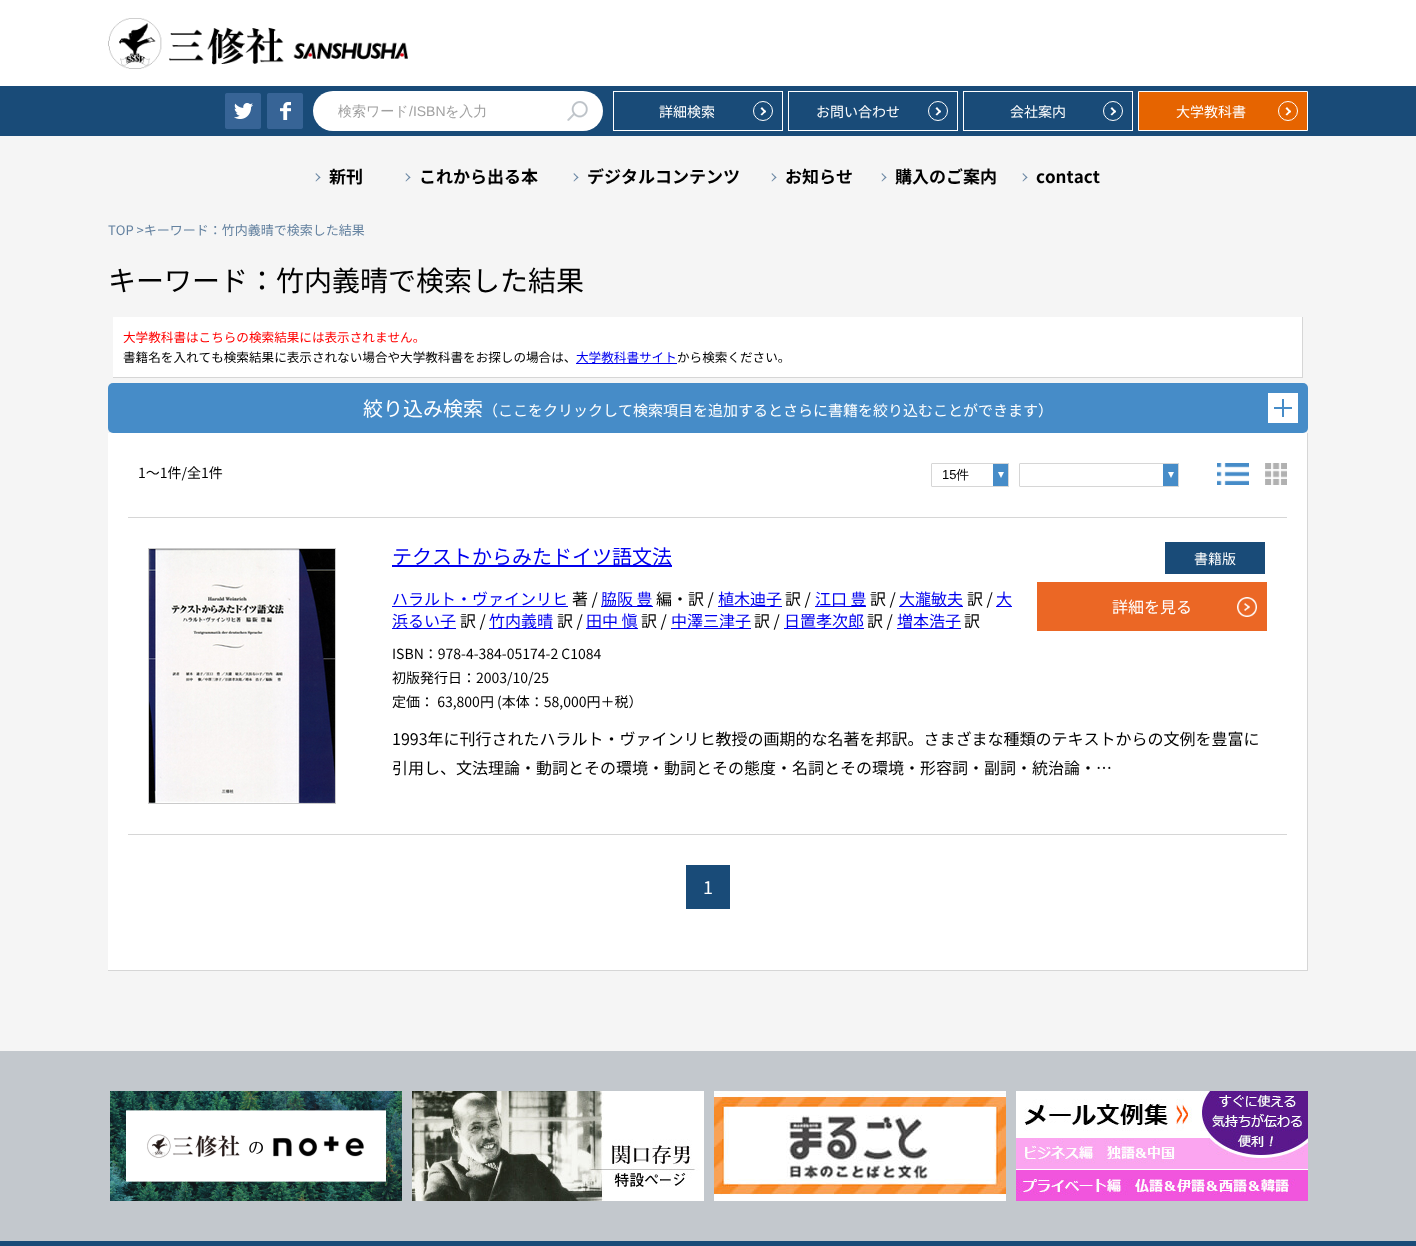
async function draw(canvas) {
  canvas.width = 1416
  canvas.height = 1246
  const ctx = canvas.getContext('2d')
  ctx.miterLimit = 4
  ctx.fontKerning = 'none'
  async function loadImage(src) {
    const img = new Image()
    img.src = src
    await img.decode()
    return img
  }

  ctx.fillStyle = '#f5f5f5'
  ctx.fillRect(0, 0, 1416, 1246)
  ctx.fillStyle = '#fff'
  ctx.fillRect(0, 0, 1416, 86)
  ctx.drawImage(await loadImage('image0.png'), 108, 18, 300, 51)
  ctx.fillStyle = '#194b78'
  ctx.fillRect(0, 86, 1416, 50)
  ctx.drawImage(await loadImage('image1.png'), 225, 93, 36, 36)
  ctx.drawImage(await loadImage('image2.png'), 267, 93, 36, 36)
  ctx.fillStyle = '#fff'
  ctx.beginPath()
  ctx.roundRect(313, 91, 290, 40, 20)
  ctx.fill()
  ctx.font = '500 14px WenQuanYi Zen Hei'
  ctx.fillStyle = '#a0a0a0'
  ctx.fillText('検索ワード', 338, 116)
  ctx.font = '14px Liberation Sans'
  ctx.fillText('/ISBN', 409, 116)
  ctx.font = '500 14px WenQuanYi Zen Hei'
  ctx.fillText('を入力', 445, 116)
  ctx.drawImage(await loadImage('image3.png'), 567, 101, 21, 20)
  ctx.strokeStyle = '#fff'
  ctx.strokeRect(613.5, 91.5, 169, 39)
  ctx.font = '14px Noto Sans CJK JP'
  ctx.fillStyle = '#fff'
  ctx.fillText('詳細検索', 659, 117)
  ctx.beginPath()
  ctx.arc(763, 111, 9.5, 0, 2 * Math.PI)
  ctx.stroke()
  ctx.beginPath()
  ctx.moveTo(762, 107)
  ctx.lineTo(766, 111.5)
  ctx.lineTo(765, 113)
  ctx.lineTo(760.5, 108.5)
  ctx.closePath()
  ctx.fill()
  ctx.beginPath()
  ctx.moveTo(765, 110)
  ctx.lineTo(766, 111.5)
  ctx.lineTo(762, 115.5)
  ctx.lineTo(760.5, 114.5)
  ctx.closePath()
  ctx.fill()
  ctx.strokeRect(788.5, 91.5, 169, 39)
  ctx.fillText('お問い合わせ', 816, 117)
  ctx.beginPath()
  ctx.arc(938, 111, 9.5, 0, 2 * Math.PI)
  ctx.stroke()
  ctx.beginPath()
  ctx.moveTo(937, 107)
  ctx.lineTo(941, 111.5)
  ctx.lineTo(940, 113)
  ctx.lineTo(935.5, 108.5)
  ctx.closePath()
  ctx.fill()
  ctx.beginPath()
  ctx.moveTo(940, 110)
  ctx.lineTo(941, 111.5)
  ctx.lineTo(937, 115.5)
  ctx.lineTo(935.5, 114.5)
  ctx.closePath()
  ctx.fill()
  ctx.strokeRect(963.5, 91.5, 169, 39)
  ctx.fillText('会社案内', 1010, 117)
  ctx.beginPath()
  ctx.arc(1113, 111, 9.5, 0, 2 * Math.PI)
  ctx.stroke()
  ctx.beginPath()
  ctx.moveTo(1112, 107)
  ctx.lineTo(1116, 111.5)
  ctx.lineTo(1115, 113)
  ctx.lineTo(1110.5, 108.5)
  ctx.closePath()
  ctx.fill()
  ctx.beginPath()
  ctx.moveTo(1115, 110)
  ctx.lineTo(1116, 111.5)
  ctx.lineTo(1112, 115.5)
  ctx.lineTo(1110.5, 114.5)
  ctx.closePath()
  ctx.fill()
  ctx.fillStyle = '#e66400'
  ctx.beginPath()
  ctx.rect(1138.5, 91.5, 169, 39)
  ctx.fill()
  ctx.stroke()
  ctx.fillStyle = '#fff'
  ctx.fillText('大学教科書', 1176, 117)
  ctx.beginPath()
  ctx.arc(1288, 111, 9.5, 0, 2 * Math.PI)
  ctx.stroke()
  ctx.beginPath()
  ctx.moveTo(1287, 107)
  ctx.lineTo(1291, 111.5)
  ctx.lineTo(1290, 113)
  ctx.lineTo(1285.5, 108.5)
  ctx.closePath()
  ctx.fill()
  ctx.beginPath()
  ctx.moveTo(1290, 110)
  ctx.lineTo(1291, 111.5)
  ctx.lineTo(1287, 115.5)
  ctx.lineTo(1285.5, 114.5)
  ctx.closePath()
  ctx.fill()
  ctx.fillStyle = '#6b87a4'
  ctx.beginPath()
  ctx.moveTo(316, 173)
  ctx.lineTo(320.5, 177.5)
  ctx.lineTo(319.5, 178)
  ctx.lineTo(315.5, 174)
  ctx.closePath()
  ctx.fill()
  ctx.beginPath()
  ctx.moveTo(319.5, 176.5)
  ctx.lineTo(320.5, 177.5)
  ctx.lineTo(316, 181.5)
  ctx.lineTo(315.5, 181)
  ctx.closePath()
  ctx.fill()
  ctx.font = 'bold 17px Noto Sans CJK JP'
  ctx.fillStyle = '#000'
  ctx.fillText('新刊', 329, 183)
  ctx.fillStyle = '#6b87a4'
  ctx.beginPath()
  ctx.moveTo(406, 173)
  ctx.lineTo(410.5, 177.5)
  ctx.lineTo(409.5, 178)
  ctx.lineTo(405.5, 174)
  ctx.closePath()
  ctx.fill()
  ctx.beginPath()
  ctx.moveTo(409.5, 176.5)
  ctx.lineTo(410.5, 177.5)
  ctx.lineTo(406, 181.5)
  ctx.lineTo(405.5, 181)
  ctx.closePath()
  ctx.fill()
  ctx.fillStyle = '#000'
  ctx.fillText('これから出る本', 419, 183)
  ctx.fillStyle = '#6b87a4'
  ctx.beginPath()
  ctx.moveTo(574, 173)
  ctx.lineTo(578.5, 177.5)
  ctx.lineTo(577.5, 178)
  ctx.lineTo(573.5, 174)
  ctx.closePath()
  ctx.fill()
  ctx.beginPath()
  ctx.moveTo(577.5, 176.5)
  ctx.lineTo(578.5, 177.5)
  ctx.lineTo(574, 181.5)
  ctx.lineTo(573.5, 181)
  ctx.closePath()
  ctx.fill()
  ctx.fillStyle = '#000'
  ctx.fillText('デジタルコンテンツ', 587, 183)
  ctx.fillStyle = '#6b87a4'
  ctx.beginPath()
  ctx.moveTo(772, 173)
  ctx.lineTo(776.5, 177.5)
  ctx.lineTo(775.5, 178)
  ctx.lineTo(771.5, 174)
  ctx.closePath()
  ctx.fill()
  ctx.beginPath()
  ctx.moveTo(775.5, 176.5)
  ctx.lineTo(776.5, 177.5)
  ctx.lineTo(772, 181.5)
  ctx.lineTo(771.5, 181)
  ctx.closePath()
  ctx.fill()
  ctx.fillStyle = '#000'
  ctx.fillText('お知らせ', 785, 183)
  ctx.fillStyle = '#6b87a4'
  ctx.beginPath()
  ctx.moveTo(882, 173)
  ctx.lineTo(886.5, 177.5)
  ctx.lineTo(885.5, 178)
  ctx.lineTo(881.5, 174)
  ctx.closePath()
  ctx.fill()
  ctx.beginPath()
  ctx.moveTo(885.5, 176.5)
  ctx.lineTo(886.5, 177.5)
  ctx.lineTo(882, 181.5)
  ctx.lineTo(881.5, 181)
  ctx.closePath()
  ctx.fill()
  ctx.fillStyle = '#000'
  ctx.fillText('購入のご案内', 895, 183)
  ctx.fillStyle = '#6b87a4'
  ctx.beginPath()
  ctx.moveTo(1023, 173)
  ctx.lineTo(1027.5, 177.5)
  ctx.lineTo(1026.5, 178)
  ctx.lineTo(1022.5, 174)
  ctx.closePath()
  ctx.fill()
  ctx.beginPath()
  ctx.moveTo(1026.5, 176.5)
  ctx.lineTo(1027.5, 177.5)
  ctx.lineTo(1023, 181.5)
  ctx.lineTo(1022.5, 181)
  ctx.closePath()
  ctx.fill()
  ctx.fillStyle = '#000'
  ctx.fillText('contact', 1036, 183)
  ctx.font = '13px Noto Sans CJK JP'
  ctx.fillStyle = '#6482a0'
  ctx.fillText('TOP >キーワード：竹内義晴で検索した結果', 108, 235)
  ctx.font = '28px Noto Sans CJK JP'
  ctx.fillStyle = '#000'
  ctx.fillText('キーワード：竹内義晴で検索した結果', 108, 291)
  ctx.fillStyle = '#fff'
  ctx.fillRect(113, 317, 1189, 60)
  ctx.fillStyle = '#d6d6d6'
  ctx.fillRect(1302, 317, 1, 61)
  ctx.fillRect(113, 377, 1190, 1)
  ctx.font = '12.6px Noto Sans CJK JP'
  ctx.fillStyle = '#f00'
  ctx.fillText('大学教科書はこちらの検索結果には表示されません。', 123, 342)
  ctx.fillStyle = '#000'
  ctx.fillText('書籍名を入れても検索結果に表示されない場合や大学教科書をお探しの場合は、', 123, 362)
  ctx.fillStyle = '#00e'
  ctx.fillRect(576, 363, 101, 1)
  ctx.fillText('大学教科書サイト', 576, 362)
  ctx.fillStyle = '#000'
  ctx.fillText('から検索ください。', 677, 362)
  ctx.fillStyle = '#468cc8'
  ctx.beginPath()
  ctx.roundRect(108, 383, 1200, 50, 5)
  ctx.fill()
  ctx.font = '20px Noto Sans CJK JP'
  ctx.fillStyle = '#fff'
  ctx.fillText('絞り込み検索', 363, 416)
  ctx.font = '15px Noto Sans CJK JP'
  ctx.fillText('（ここをクリックして検索項目を追加するとさらに書籍を絞り込むことができます）', 483, 416)
  ctx.fillRect(1268, 393, 30, 30)
  ctx.fillStyle = '#468cc8'
  ctx.fillRect(1274, 407, 18, 2)
  ctx.fillRect(1282, 399, 2, 18)
  ctx.fillStyle = '#fff'
  ctx.fillRect(108, 433, 1199, 537)
  ctx.fillStyle = '#d6d6d6'
  ctx.fillRect(1307, 433, 1, 538)
  ctx.fillRect(108, 970, 1200, 1)
  ctx.fillRect(128, 517, 1159, 1)
  ctx.font = '14px Noto Sans CJK JP'
  ctx.fillStyle = '#000'
  ctx.fillText('1～1件/全1件', 138, 478)
  ctx.fillStyle = '#468cc8'
  ctx.beginPath()
  ctx.roundRect(993, 463, 16, 24, [0, 2, 2, 0])
  ctx.fill()
  ctx.fillStyle = '#fff'
  ctx.beginPath()
  ctx.moveTo(998, 472)
  ctx.lineTo(1004, 472)
  ctx.lineTo(1001, 478)
  ctx.closePath()
  ctx.fill()
  ctx.beginPath()
  ctx.roundRect(931.5, 463.5, 77, 23, 0.5)
  ctx.strokeStyle = '#d6d6d6'
  ctx.stroke()
  ctx.font = '13px Liberation Sans'
  ctx.fillStyle = '#000'
  ctx.fillText('15', 942, 479)
  ctx.font = '500 13px WenQuanYi Zen Hei'
  ctx.fillText('件', 956, 479)
  ctx.fillStyle = '#468cc8'
  ctx.beginPath()
  ctx.roundRect(1163, 463, 16, 24, [0, 2, 2, 0])
  ctx.fill()
  ctx.fillStyle = '#fff'
  ctx.beginPath()
  ctx.moveTo(1168, 472)
  ctx.lineTo(1174, 472)
  ctx.lineTo(1171, 478)
  ctx.closePath()
  ctx.fill()
  ctx.beginPath()
  ctx.roundRect(1019.5, 463.5, 159, 23, 0.5)
  ctx.stroke()
  ctx.drawImage(await loadImage('image4.png'), 1217, 463, 32, 22)
  ctx.drawImage(await loadImage('image5.png'), 1265, 463, 22, 22)
  ctx.fillStyle = '#d6d6d6'
  ctx.fillRect(128, 834, 1159, 1)
  ctx.strokeStyle = '#cacaca'
  ctx.strokeRect(148.5, 548.5, 187, 255)
  ctx.drawImage(await loadImage('image6.png'), 149, 549, 186, 254)
  ctx.fillStyle = '#00e'
  ctx.fillRect(392, 565, 280, 2)
  ctx.font = '20px Noto Sans CJK JP'
  ctx.fillText('テクストからみたドイツ語文法', 392, 564)
  ctx.fillRect(392, 606, 176, 1)
  ctx.font = '16px Noto Sans CJK JP'
  ctx.fillText('ハラルト・ヴァインリヒ', 392, 605)
  ctx.fillStyle = '#000'
  ctx.fillText('著 /', 572, 605)
  ctx.fillStyle = '#00e'
  ctx.fillRect(601, 606, 52, 1)
  ctx.fillText('脇阪 豊', 601, 605)
  ctx.fillStyle = '#000'
  ctx.fillText('編・訳 /', 656, 605)
  ctx.fillStyle = '#00e'
  ctx.fillRect(718, 606, 64, 1)
  ctx.fillText('植木迪子', 718, 605)
  ctx.fillStyle = '#000'
  ctx.fillText('訳 /', 785, 605)
  ctx.fillStyle = '#00e'
  ctx.fillRect(815, 606, 51, 1)
  ctx.fillText('江口 豊', 815, 605)
  ctx.fillStyle = '#000'
  ctx.fillText('訳 /', 870, 605)
  ctx.fillStyle = '#00e'
  ctx.fillRect(899, 606, 64, 1)
  ctx.fillText('大瀧敏夫', 899, 605)
  ctx.fillStyle = '#000'
  ctx.fillText('訳 /', 967, 605)
  ctx.fillStyle = '#00e'
  ctx.fillRect(996, 606, 16, 1)
  ctx.fillText('大', 996, 605)
  ctx.fillRect(392, 628, 64, 1)
  ctx.fillText('浜るい子', 392, 627)
  ctx.fillStyle = '#000'
  ctx.fillText('訳 /', 460, 627)
  ctx.fillStyle = '#00e'
  ctx.fillRect(489, 628, 64, 1)
  ctx.fillText('竹内義晴', 489, 627)
  ctx.fillStyle = '#000'
  ctx.fillText('訳 /', 557, 627)
  ctx.fillStyle = '#00e'
  ctx.fillRect(586, 628, 52, 1)
  ctx.fillText('田中 愼', 586, 627)
  ctx.fillStyle = '#000'
  ctx.fillText('訳 /', 641, 627)
  ctx.fillStyle = '#00e'
  ctx.fillRect(671, 628, 80, 1)
  ctx.fillText('中澤三津子', 671, 627)
  ctx.fillStyle = '#000'
  ctx.fillText('訳 /', 754, 627)
  ctx.fillStyle = '#00e'
  ctx.fillRect(784, 628, 80, 1)
  ctx.fillText('日置孝次郎', 784, 627)
  ctx.fillStyle = '#000'
  ctx.fillText('訳 /', 867, 627)
  ctx.fillStyle = '#00e'
  ctx.fillRect(897, 628, 64, 1)
  ctx.fillText('増本浩子', 897, 627)
  ctx.fillStyle = '#000'
  ctx.fillText('訳', 964, 627)
  ctx.font = '14px Noto Sans CJK JP'
  ctx.fillText('ISBN：978-4-384-05174-2 C1084', 392, 659)
  ctx.fillText('初版発行日：2003/10/25', 392, 683)
  ctx.fillText('定価： 63,800円 (本体：58,000円＋税）', 392, 707)
  ctx.fillStyle = '#194b78'
  ctx.fillRect(1165, 542, 100, 32)
  ctx.fillStyle = '#fff'
  ctx.fillText('書籍版', 1194, 564)
  ctx.fillStyle = '#eb6725'
  ctx.fillRect(1037, 582, 230, 49)
  ctx.drawImage(await loadImage('image7.png'), 1237, 597, 20, 20)
  ctx.font = '16px Noto Sans CJK JP'
  ctx.fillStyle = '#fff'
  ctx.fillText('詳細を見る', 1112, 613)
  ctx.fillStyle = '#000'
  ctx.fillText('1993年に刊行されたハラルト・ヴァインリヒ教授の画期的な名著を邦訳。さまざまな種類のテキストからの文例を豊富に', 392, 745)
  ctx.fillText('引用し、文法理論・動詞とその環境・動詞とその態度・名詞とその環境・形容詞・副詞・統治論・…', 392, 774)
  ctx.fillStyle = '#194b78'
  ctx.fillRect(686, 865, 44, 44)
  ctx.font = '18px Noto Sans CJK JP'
  ctx.fillStyle = '#fff'
  ctx.fillText('1', 703, 894)
  ctx.fillStyle = '#c3c8cd'
  ctx.fillRect(0, 1051, 1416, 190)
  ctx.drawImage(await loadImage('image8.png'), 110, 1091, 292, 110)
  ctx.drawImage(await loadImage('image9.png'), 412, 1091, 292, 110)
  ctx.drawImage(await loadImage('image10.png'), 714, 1091, 292, 110)
  ctx.drawImage(await loadImage('image11.png'), 1016, 1091, 292, 110)
  ctx.fillStyle = '#194b78'
  ctx.fillRect(0, 1241, 1416, 5)
}

draw(document.querySelector('canvas'))
